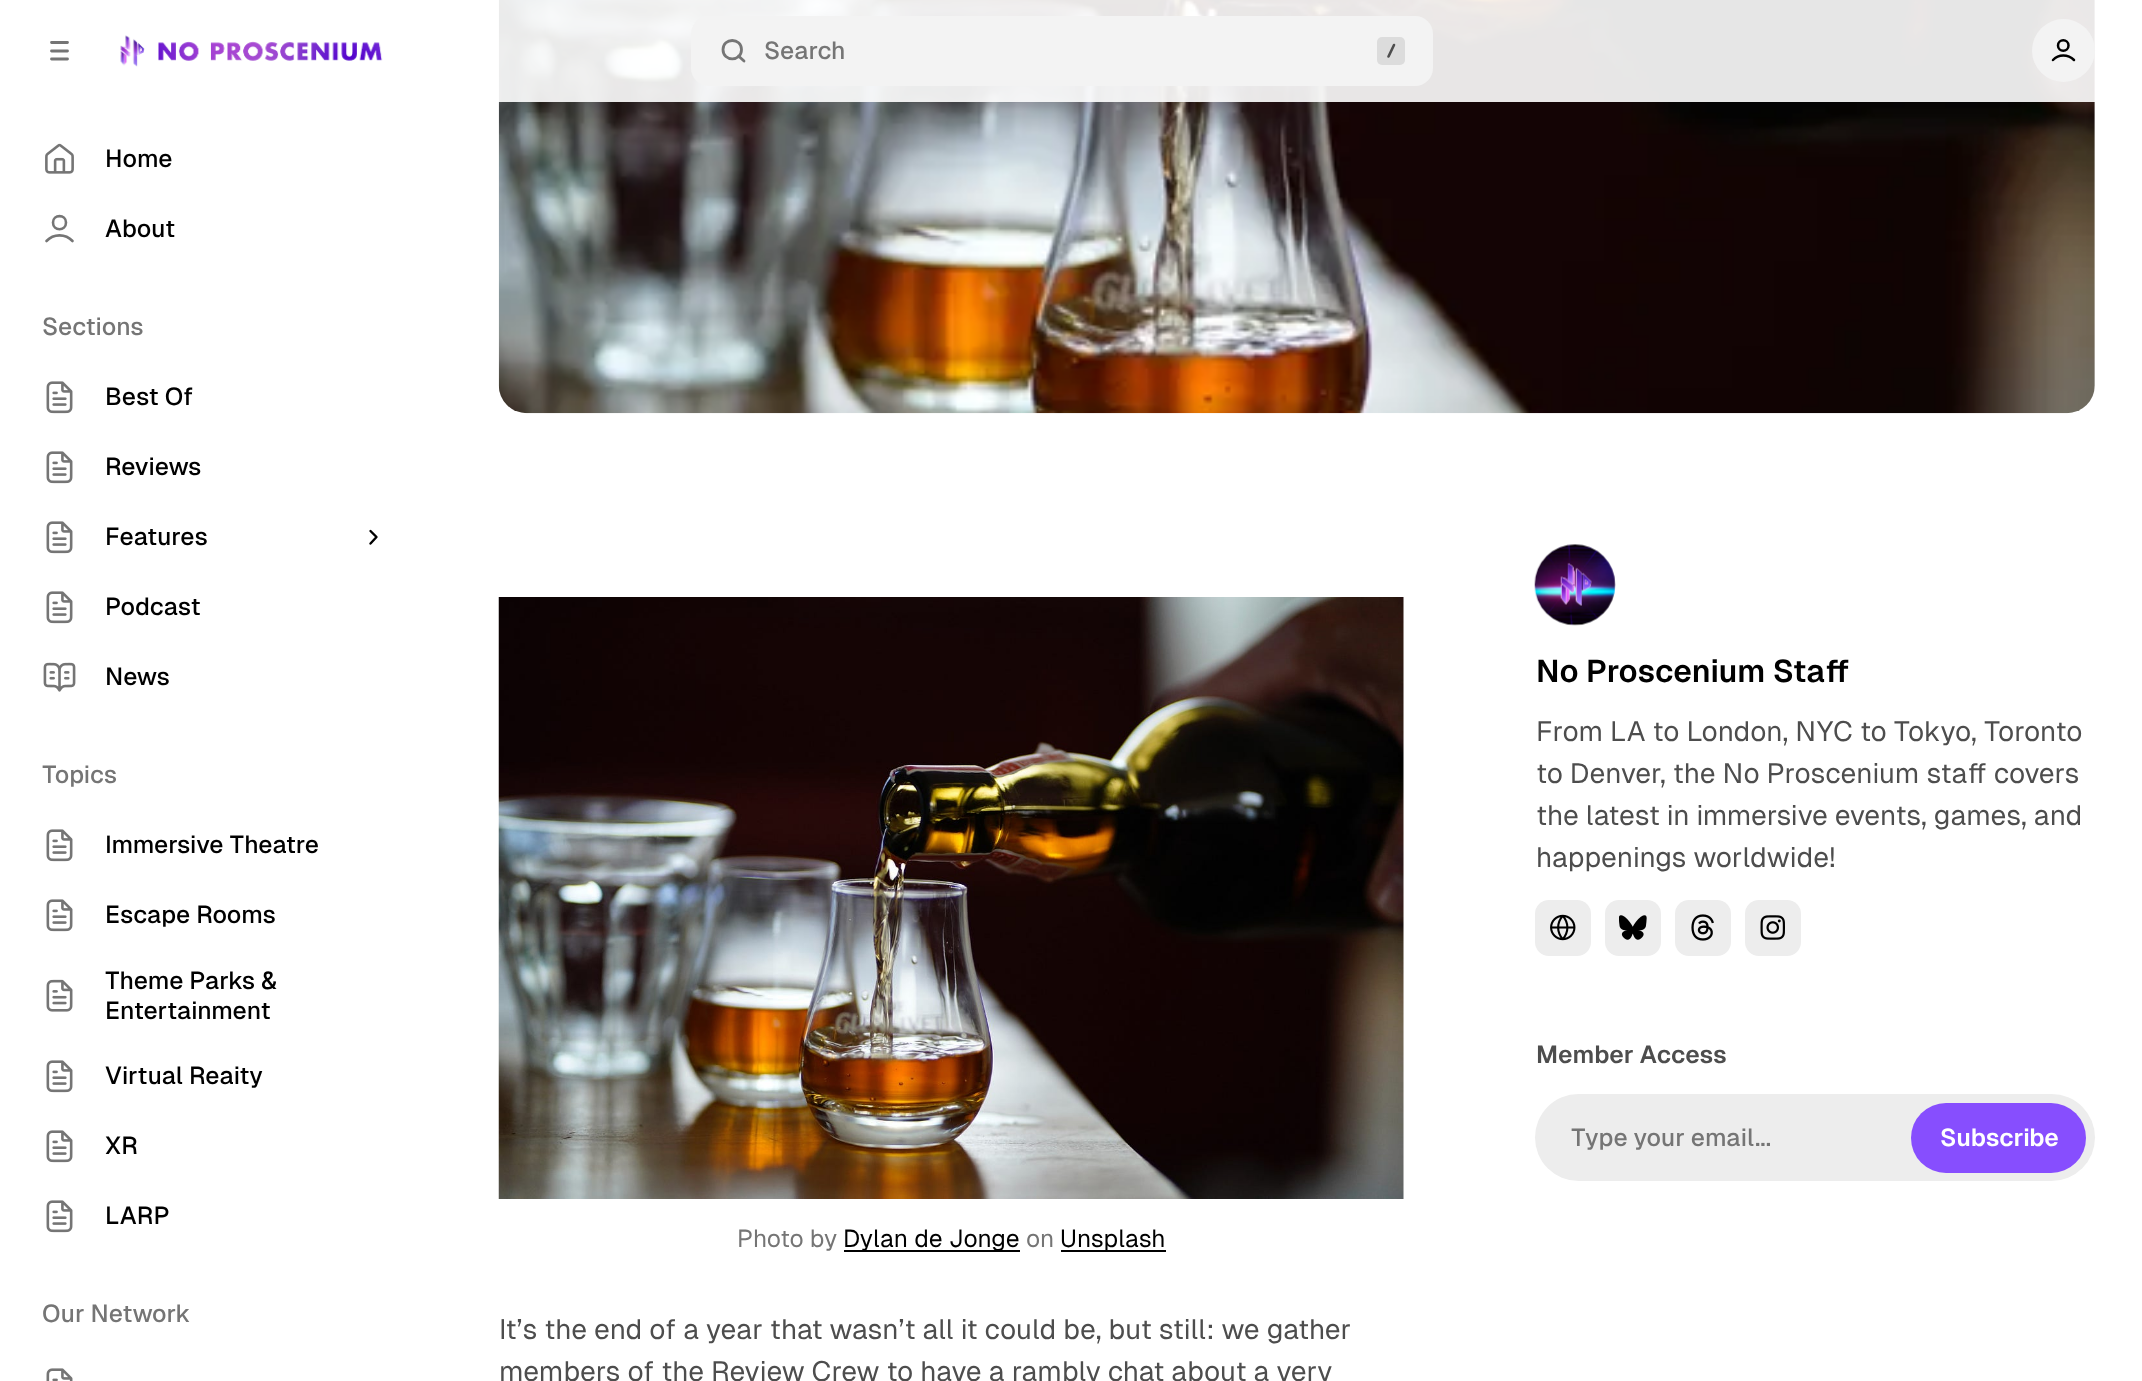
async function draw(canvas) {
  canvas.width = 2142
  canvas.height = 1381
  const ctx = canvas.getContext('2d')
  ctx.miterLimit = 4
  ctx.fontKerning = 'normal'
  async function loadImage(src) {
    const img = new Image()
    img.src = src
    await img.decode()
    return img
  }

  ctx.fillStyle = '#fff'
  ctx.fillRect(0, 0, 2142, 1381)
  ctx.fillStyle = '#e6e6e6'
  ctx.beginPath()
  ctx.roundRect(499, -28, 1596, 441, 28)
  ctx.fill()
  ctx.drawImage(await loadImage('image6.png'), 498, 0, 1597, 414)
  ctx.fillStyle = '#ffffffe6'
  ctx.fillRect(498, 0, 1597, 102)
  ctx.beginPath()
  ctx.moveTo(51.5, 51)
  ctx.lineTo(67.5, 51)
  ctx.moveTo(51.5, 42.5)
  ctx.lineTo(67.5, 42.5)
  ctx.moveTo(51.5, 59)
  ctx.lineTo(67.5, 59)
  ctx.strokeStyle = '#757575'
  ctx.lineWidth = 2.8
  ctx.lineCap = 'round'
  ctx.lineJoin = 'round'
  ctx.stroke()
  ctx.drawImage(await loadImage('image0.png'), 120, 35, 263, 32)
  ctx.fillStyle = '#f3f3f3'
  ctx.beginPath()
  ctx.roundRect(691, 16, 742, 70, 18)
  ctx.fill()
  ctx.beginPath()
  ctx.moveTo(744, 61)
  ctx.lineTo(738.5, 56)
  ctx.moveTo(741.5, 49.5)
  ctx.bezierCurveTo(741.5, 62, 723, 62, 723, 49.5)
  ctx.bezierCurveTo(723, 37.5, 741.5, 37.5, 741.5, 49.5)
  ctx.closePath()
  ctx.stroke()
  ctx.font = '500 24.5px Geist'
  ctx.fillStyle = '#757575'
  ctx.fillText('Search', 764, 59)
  ctx.fillStyle = '#dcdcdc'
  ctx.beginPath()
  ctx.roundRect(1377, 37, 28, 28, 5)
  ctx.fill()
  ctx.beginPath()
  ctx.moveTo(1388.5, 56.5)
  ctx.lineTo(1394, 45)
  ctx.strokeStyle = '#4d4d4d'
  ctx.lineWidth = 2.6
  ctx.stroke()
  ctx.fillStyle = '#f3f3f3'
  ctx.beginPath()
  ctx.arc(2063.5, 50.5, 31.5, 0, 2 * Math.PI)
  ctx.fill()
  ctx.beginPath()
  ctx.moveTo(2053, 60)
  ctx.bezierCurveTo(2058.5, 54, 2068, 54, 2074, 60)
  ctx.moveTo(2068.5, 45.5)
  ctx.bezierCurveTo(2068.5, 52.5, 2058, 52.5, 2058, 45.5)
  ctx.bezierCurveTo(2058, 38.5, 2068.5, 38.5, 2068.5, 45.5)
  ctx.closePath()
  ctx.strokeStyle = '#000'
  ctx.lineWidth = 2.5
  ctx.stroke()
  ctx.drawImage(await loadImage('image1.png'), 45, 143, 29, 31)
  ctx.fillStyle = '#000'
  ctx.fillText('Home', 105, 167)
  ctx.beginPath()
  ctx.moveTo(46.5, 241)
  ctx.bezierCurveTo(53.5, 233.5, 65.5, 233.5, 72.5, 241)
  ctx.moveTo(66, 222.5)
  ctx.bezierCurveTo(66, 231.5, 53, 231.5, 53, 222.5)
  ctx.bezierCurveTo(53, 214, 66, 214, 66, 222.5)
  ctx.closePath()
  ctx.strokeStyle = '#757575'
  ctx.lineWidth = 2.6
  ctx.stroke()
  ctx.fillText('About', 105, 237)
  ctx.fillStyle = '#757575'
  ctx.fillText('Sections', 42, 335)
  ctx.drawImage(await loadImage('image2.png'), 46, 381, 27, 33)
  ctx.fillStyle = '#000'
  ctx.fillText('Best Of', 105, 405)
  ctx.drawImage(await loadImage('image2.png'), 46, 451, 27, 33)
  ctx.fillText('Reviews', 105, 475)
  ctx.drawImage(await loadImage('image2.png'), 46, 521, 27, 33)
  ctx.fillText('Features', 105, 545)
  ctx.beginPath()
  ctx.moveTo(370.5, 543.5)
  ctx.lineTo(376.5, 537)
  ctx.lineTo(370.5, 531)
  ctx.strokeStyle = '#000'
  ctx.lineWidth = 2.4
  ctx.stroke()
  ctx.drawImage(await loadImage('image2.png'), 46, 591, 27, 33)
  ctx.fillText('Podcast', 105, 615)
  ctx.drawImage(await loadImage('image3.png'), 43, 662, 33, 30)
  ctx.fillText('News', 105, 685)
  ctx.fillStyle = '#757575'
  ctx.fillText('Topics', 42, 783)
  ctx.drawImage(await loadImage('image2.png'), 46, 829, 27, 33)
  ctx.fillStyle = '#000'
  ctx.fillText('Immersive Theatre', 105, 853)
  ctx.drawImage(await loadImage('image2.png'), 46, 899, 27, 33)
  ctx.fillText('Escape Rooms', 105, 923)
  ctx.drawImage(await loadImage('image4.png'), 46, 979, 27, 33)
  ctx.fillText('Theme Parks &', 105, 989)
  ctx.fillText('Entertainment', 105, 1019)
  ctx.drawImage(await loadImage('image2.png'), 46, 1060, 27, 33)
  ctx.fillText('Virtual Reaity', 105, 1084)
  ctx.drawImage(await loadImage('image2.png'), 46, 1130, 27, 33)
  ctx.fillText('XR', 105, 1154)
  ctx.drawImage(await loadImage('image2.png'), 46, 1200, 27, 33)
  ctx.fillText('LARP', 105, 1224)
  ctx.fillStyle = '#757575'
  ctx.fillText('Our Network', 42, 1322)
  ctx.drawImage(await loadImage('image5.png'), 46, 1368, 27, 13)
  ctx.fillStyle = '#f3f3f3'
  ctx.beginPath()
  ctx.roundRect(1535, 544, 80, 81, 40)
  ctx.fill()
  ctx.drawImage(await loadImage('image7.png'), 1534, 544, 82, 82)
  ctx.font = '600 31.5px Geist'
  ctx.fillStyle = '#000'
  ctx.fillText('No Proscenium Staff', 1536, 682)
  ctx.font = '28px Geist'
  ctx.fillStyle = '#4d4d4d'
  ctx.fillText('From LA to London, NYC to Tokyo, Toronto', 1536, 741)
  ctx.fillText('to Denver, the No Proscenium staff covers', 1536, 783)
  ctx.fillText('the latest in immersive events, games, and', 1536, 825)
  ctx.fillText('happenings worldwide!', 1536, 867)
  ctx.fillStyle = '#ededed'
  ctx.beginPath()
  ctx.roundRect(1535, 900, 56, 56, 14)
  ctx.fill()
  ctx.drawImage(await loadImage('image8.png'), 1550, 914, 26, 27)
  ctx.beginPath()
  ctx.roundRect(1605, 900, 56, 56, 14)
  ctx.fill()
  ctx.drawImage(await loadImage('image9.png'), 1619, 915, 28, 25)
  ctx.beginPath()
  ctx.roundRect(1675, 900, 56, 56, 14)
  ctx.fill()
  ctx.drawImage(await loadImage('image10.png'), 1691, 914, 23, 27)
  ctx.beginPath()
  ctx.roundRect(1745, 900, 56, 56, 14)
  ctx.fill()
  ctx.drawImage(await loadImage('image11.png'), 1760, 915, 25, 25)
  ctx.font = '600 24.5px Geist'
  ctx.fillStyle = '#4d4d4d'
  ctx.fillText('Member Access', 1536, 1063)
  ctx.fillStyle = '#ededed'
  ctx.beginPath()
  ctx.roundRect(1535, 1094, 560, 87, 43.5)
  ctx.fill()
  ctx.font = '500 24.5px Geist'
  ctx.fillStyle = '#757575'
  ctx.fillText('Type your email...', 1571, 1146)
  ctx.fillStyle = '#874efe'
  ctx.beginPath()
  ctx.roundRect(1911, 1103, 175, 70, 35)
  ctx.fill()
  ctx.font = '600 24.5px Geist'
  ctx.fillStyle = '#fff'
  ctx.fillText('Subscribe', 1940, 1146)
  ctx.drawImage(await loadImage('image12.png'), 498, 597, 906, 602)
  ctx.font = '24.5px Geist'
  ctx.fillStyle = '#757575'
  ctx.fillText('Photo by', 737, 1247)
  ctx.fillStyle = '#000'
  ctx.fillRect(844, 1250, 176, 2)
  ctx.fillText('Dylan de Jonge', 843, 1247)
  ctx.fillStyle = '#757575'
  ctx.fillText('on', 1026, 1247)
  ctx.fillStyle = '#000'
  ctx.fillRect(1061, 1250, 105, 2)
  ctx.fillText('Unsplash', 1060, 1247)
  ctx.font = '28px Geist'
  ctx.fillStyle = '#4d4d4d'
  ctx.fillText('It’s the end of a year that wasn’t all it could be, but still: we gather', 499, 1339)
  ctx.fillText('members of the Review Crew to have a rambly chat about a very', 499, 1381)
}

draw(document.querySelector('canvas'))
